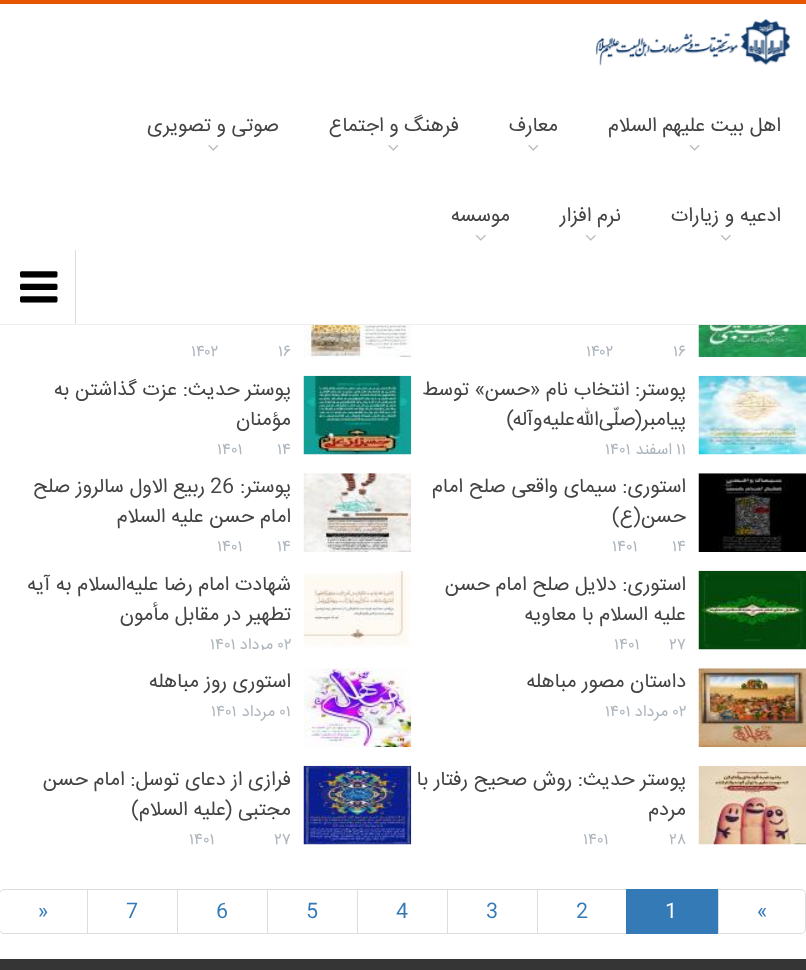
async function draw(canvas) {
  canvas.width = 806
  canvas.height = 970
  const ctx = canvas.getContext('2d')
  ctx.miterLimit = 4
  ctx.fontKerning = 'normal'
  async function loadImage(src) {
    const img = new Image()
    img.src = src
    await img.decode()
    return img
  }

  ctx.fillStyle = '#fff'
  ctx.fillRect(0, 0, 806, 970)
  ctx.fillStyle = '#e85500'
  ctx.fillRect(0, 0, 806, 4)
  ctx.fillStyle = '#eee'
  ctx.fillRect(0, 324, 806, 1)
  ctx.drawImage(await loadImage('image0.png'), 595, 19, 195, 47)
  ctx.direction = 'rtl'
  ctx.font = '20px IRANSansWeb'
  ctx.fillStyle = '#444'
  ctx.fillText('اهل بیت علیهم السلام', 781, 131)
  ctx.drawImage(await loadImage('image1.png'), 689, 145, 11, 6)
  ctx.fillText('معارف', 558, 131)
  ctx.drawImage(await loadImage('image2.png'), 528, 145, 11, 6)
  ctx.fillText('فرهنگ و اجتماع', 459, 131)
  ctx.drawImage(await loadImage('image2.png'), 388, 145, 11, 6)
  ctx.fillText('صوتی و تصویری', 279, 131)
  ctx.drawImage(await loadImage('image2.png'), 208, 145, 11, 6)
  ctx.fillText('ادعیه و زیارات', 781, 221)
  ctx.drawImage(await loadImage('image3.png'), 720, 235, 11, 6)
  ctx.fillText('نرم افزار', 621, 221)
  ctx.drawImage(await loadImage('image3.png'), 585, 235, 11, 6)
  ctx.fillText('موسسه', 510, 221)
  ctx.drawImage(await loadImage('image3.png'), 475, 235, 11, 6)
  ctx.fillStyle = '#ddd'
  ctx.fillRect(75, 250, 1, 74)
  ctx.drawImage(await loadImage('image4.png'), 20, 271, 38, 32)
  ctx.drawImage(await loadImage('image5.png'), 698, 325, 108, 32)
  ctx.direction = 'ltr'
  ctx.font = '16px IRANSansWeb'
  ctx.fillStyle = '#adb5bd'
  ctx.fillText('۱۶', 673, 356)
  ctx.fillText('۱۴۰۲', 586, 356)
  ctx.drawImage(await loadImage('image6.png'), 303, 325, 108, 32)
  ctx.fillText('۱۶', 278, 356)
  ctx.fillText('۱۴۰۲', 191, 356)
  ctx.drawImage(await loadImage('image7.png'), 698, 375, 108, 80)
  ctx.direction = 'rtl'
  ctx.font = '20px IRANSansWeb'
  ctx.fillStyle = '#444'
  ctx.fillText('پوستر: انتخاب نام «حسن» توسط', 686, 395)
  ctx.fillText('پیامبر(صلّی‌الله‌علیه‌وآله)', 686, 425)
  ctx.direction = 'ltr'
  ctx.font = '16px IRANSansWeb'
  ctx.fillStyle = '#adb5bd'
  ctx.fillText('۱۱', 676, 454)
  ctx.direction = 'rtl'
  ctx.fillText('اسفند', 672, 454)
  ctx.direction = 'ltr'
  ctx.fillText('۱۴۰۱', 605, 454)
  ctx.drawImage(await loadImage('image8.png'), 303, 375, 109, 80)
  ctx.direction = 'rtl'
  ctx.font = '20px IRANSansWeb'
  ctx.fillStyle = '#444'
  ctx.fillText('پوستر حدیث: عزت گذاشتن به', 291, 395)
  ctx.fillText('مؤمنان', 291, 425)
  ctx.direction = 'ltr'
  ctx.font = '16px IRANSansWeb'
  ctx.fillStyle = '#adb5bd'
  ctx.fillText('۱۴', 277, 454)
  ctx.fillText('۱۴۰۱', 217, 454)
  ctx.drawImage(await loadImage('image9.png'), 698, 473, 108, 79)
  ctx.direction = 'rtl'
  ctx.font = '20px IRANSansWeb'
  ctx.fillStyle = '#444'
  ctx.fillText('استوری: سیمای واقعی صلح امام', 686, 492)
  ctx.fillText('حسن(ع)', 686, 522)
  ctx.direction = 'ltr'
  ctx.font = '16px IRANSansWeb'
  ctx.fillStyle = '#adb5bd'
  ctx.fillText('۱۴', 672, 551)
  ctx.fillText('۱۴۰۱', 612, 551)
  ctx.drawImage(await loadImage('image10.png'), 303, 473, 108, 79)
  ctx.direction = 'rtl'
  ctx.font = '20px IRANSansWeb'
  ctx.fillStyle = '#444'
  ctx.fillText('پوستر:', 291, 492)
  ctx.direction = 'ltr'
  ctx.fillText('26', 210, 492)
  ctx.direction = 'rtl'
  ctx.fillText('ربیع الاول سالروز صلح', 205, 492)
  ctx.fillText('امام حسن علیه السلام', 291, 522)
  ctx.direction = 'ltr'
  ctx.font = '16px IRANSansWeb'
  ctx.fillStyle = '#adb5bd'
  ctx.fillText('۱۴', 277, 551)
  ctx.fillText('۱۴۰۱', 217, 551)
  ctx.drawImage(await loadImage('image11.png'), 698, 570, 108, 80)
  ctx.direction = 'rtl'
  ctx.font = '20px IRANSansWeb'
  ctx.fillStyle = '#444'
  ctx.fillText('استوری: دلایل صلح امام حسن', 686, 590)
  ctx.fillText('علیه السلام با معاویه', 686, 620)
  ctx.direction = 'ltr'
  ctx.font = '16px IRANSansWeb'
  ctx.fillStyle = '#adb5bd'
  ctx.fillText('۲۷', 669, 649)
  ctx.fillText('۱۴۰۱', 614, 649)
  ctx.drawImage(await loadImage('image12.png'), 303, 571, 108, 78)
  ctx.direction = 'rtl'
  ctx.font = '20px IRANSansWeb'
  ctx.fillStyle = '#444'
  ctx.fillText('شهادت امام رضا علیه‌السلام به آیه', 291, 590)
  ctx.fillText('تطهیر در مقابل مأمون', 291, 620)
  ctx.direction = 'ltr'
  ctx.font = '16px IRANSansWeb'
  ctx.fillStyle = '#adb5bd'
  ctx.fillText('۰۲', 278, 649)
  ctx.save()
  ctx.beginPath()
  ctx.rect(16, 571, 395, 79)
  ctx.clip()
  ctx.direction = 'rtl'
  ctx.fillText('مرداد', 273, 649)
  ctx.restore()
  ctx.fillText('۱۴۰۱', 210, 649)
  ctx.drawImage(await loadImage('image13.png'), 698, 668, 108, 79)
  ctx.direction = 'rtl'
  ctx.font = '20px IRANSansWeb'
  ctx.fillStyle = '#444'
  ctx.fillText('داستان مصور مباهله', 686, 687)
  ctx.direction = 'ltr'
  ctx.font = '16px IRANSansWeb'
  ctx.fillStyle = '#adb5bd'
  ctx.fillText('۰۲', 673, 716)
  ctx.direction = 'rtl'
  ctx.fillText('مرداد', 668, 716)
  ctx.direction = 'ltr'
  ctx.fillText('۱۴۰۱', 605, 716)
  ctx.drawImage(await loadImage('image14.png'), 303, 668, 109, 79)
  ctx.direction = 'rtl'
  ctx.font = '20px IRANSansWeb'
  ctx.fillStyle = '#444'
  ctx.fillText('استوری روز مباهله', 291, 687)
  ctx.direction = 'ltr'
  ctx.font = '16px IRANSansWeb'
  ctx.fillStyle = '#adb5bd'
  ctx.fillText('۰۱', 279, 716)
  ctx.direction = 'rtl'
  ctx.fillText('مرداد', 275, 716)
  ctx.direction = 'ltr'
  ctx.fillText('۱۴۰۱', 211, 716)
  ctx.drawImage(await loadImage('image15.png'), 698, 765, 108, 80)
  ctx.direction = 'rtl'
  ctx.font = '20px IRANSansWeb'
  ctx.fillStyle = '#444'
  ctx.fillText('پوستر حدیث: روش صحیح رفتار با', 686, 785)
  ctx.fillText('مردم', 686, 815)
  ctx.direction = 'ltr'
  ctx.font = '16px IRANSansWeb'
  ctx.fillStyle = '#adb5bd'
  ctx.fillText('۲۸', 669, 844)
  ctx.fillText('۱۴۰۱', 583, 844)
  ctx.drawImage(await loadImage('image16.png'), 303, 765, 109, 80)
  ctx.direction = 'rtl'
  ctx.font = '20px IRANSansWeb'
  ctx.fillStyle = '#444'
  ctx.fillText('فرازی از دعای توسل:‌ امام حسن', 291, 785)
  ctx.fillText('مجتبی (علیه السلام)', 291, 815)
  ctx.direction = 'ltr'
  ctx.font = '16px IRANSansWeb'
  ctx.fillStyle = '#adb5bd'
  ctx.fillText('۲۷', 274, 844)
  ctx.fillText('۱۴۰۱', 189, 844)
  ctx.beginPath()
  ctx.roundRect(718.5, 889.5, 87, 44, [0, 4.5, 4.5, 0])
  ctx.strokeStyle = '#ddd'
  ctx.stroke()
  ctx.font = '20px IRANSansWeb'
  ctx.fillStyle = '#337ab7'
  ctx.fillText('«', 757, 917)
  ctx.strokeRect(536.5, 889.5, 91, 44)
  ctx.fillRect(626, 889, 92, 45)
  ctx.fillStyle = '#fff'
  ctx.fillText('1', 665, 917)
  ctx.fillStyle = '#337ab7'
  ctx.fillText('2', 576, 917)
  ctx.fillStyle = '#fff'
  ctx.fillRect(536, 890, 1, 43)
  ctx.strokeRect(446.5, 889.5, 91, 44)
  ctx.fillStyle = '#337ab7'
  ctx.fillText('3', 486, 917)
  ctx.fillStyle = '#fff'
  ctx.fillRect(446, 890, 1, 43)
  ctx.strokeRect(356.5, 889.5, 91, 44)
  ctx.fillStyle = '#337ab7'
  ctx.fillText('4', 396, 917)
  ctx.fillStyle = '#fff'
  ctx.fillRect(356, 890, 1, 43)
  ctx.strokeRect(266.5, 889.5, 91, 44)
  ctx.fillStyle = '#337ab7'
  ctx.fillText('5', 306, 917)
  ctx.fillStyle = '#fff'
  ctx.fillRect(266, 890, 1, 43)
  ctx.strokeRect(176.5, 889.5, 91, 44)
  ctx.fillStyle = '#337ab7'
  ctx.fillText('6', 216, 917)
  ctx.fillStyle = '#fff'
  ctx.fillRect(176, 890, 1, 43)
  ctx.strokeRect(86.5, 889.5, 91, 44)
  ctx.fillStyle = '#337ab7'
  ctx.fillText('7', 126, 917)
  ctx.fillStyle = '#fff'
  ctx.beginPath()
  ctx.moveTo(4, 889.5)
  ctx.lineTo(87.5, 889.5)
  ctx.lineTo(87.5, 933.5)
  ctx.lineTo(4, 933.5)
  ctx.bezierCurveTo(1.5, 933.5, -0.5, 931.5, -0.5, 929)
  ctx.lineTo(-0.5, 894)
  ctx.bezierCurveTo(-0.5, 891.5, 1.5, 889.5, 4, 889.5)
  ctx.closePath()
  ctx.fill()
  ctx.stroke()
  ctx.fillStyle = '#337ab7'
  ctx.fillText('»', 38, 917)
  ctx.fillStyle = '#353535'
  ctx.fillRect(0, 959, 806, 11)
}

draw(document.querySelector('canvas'))
